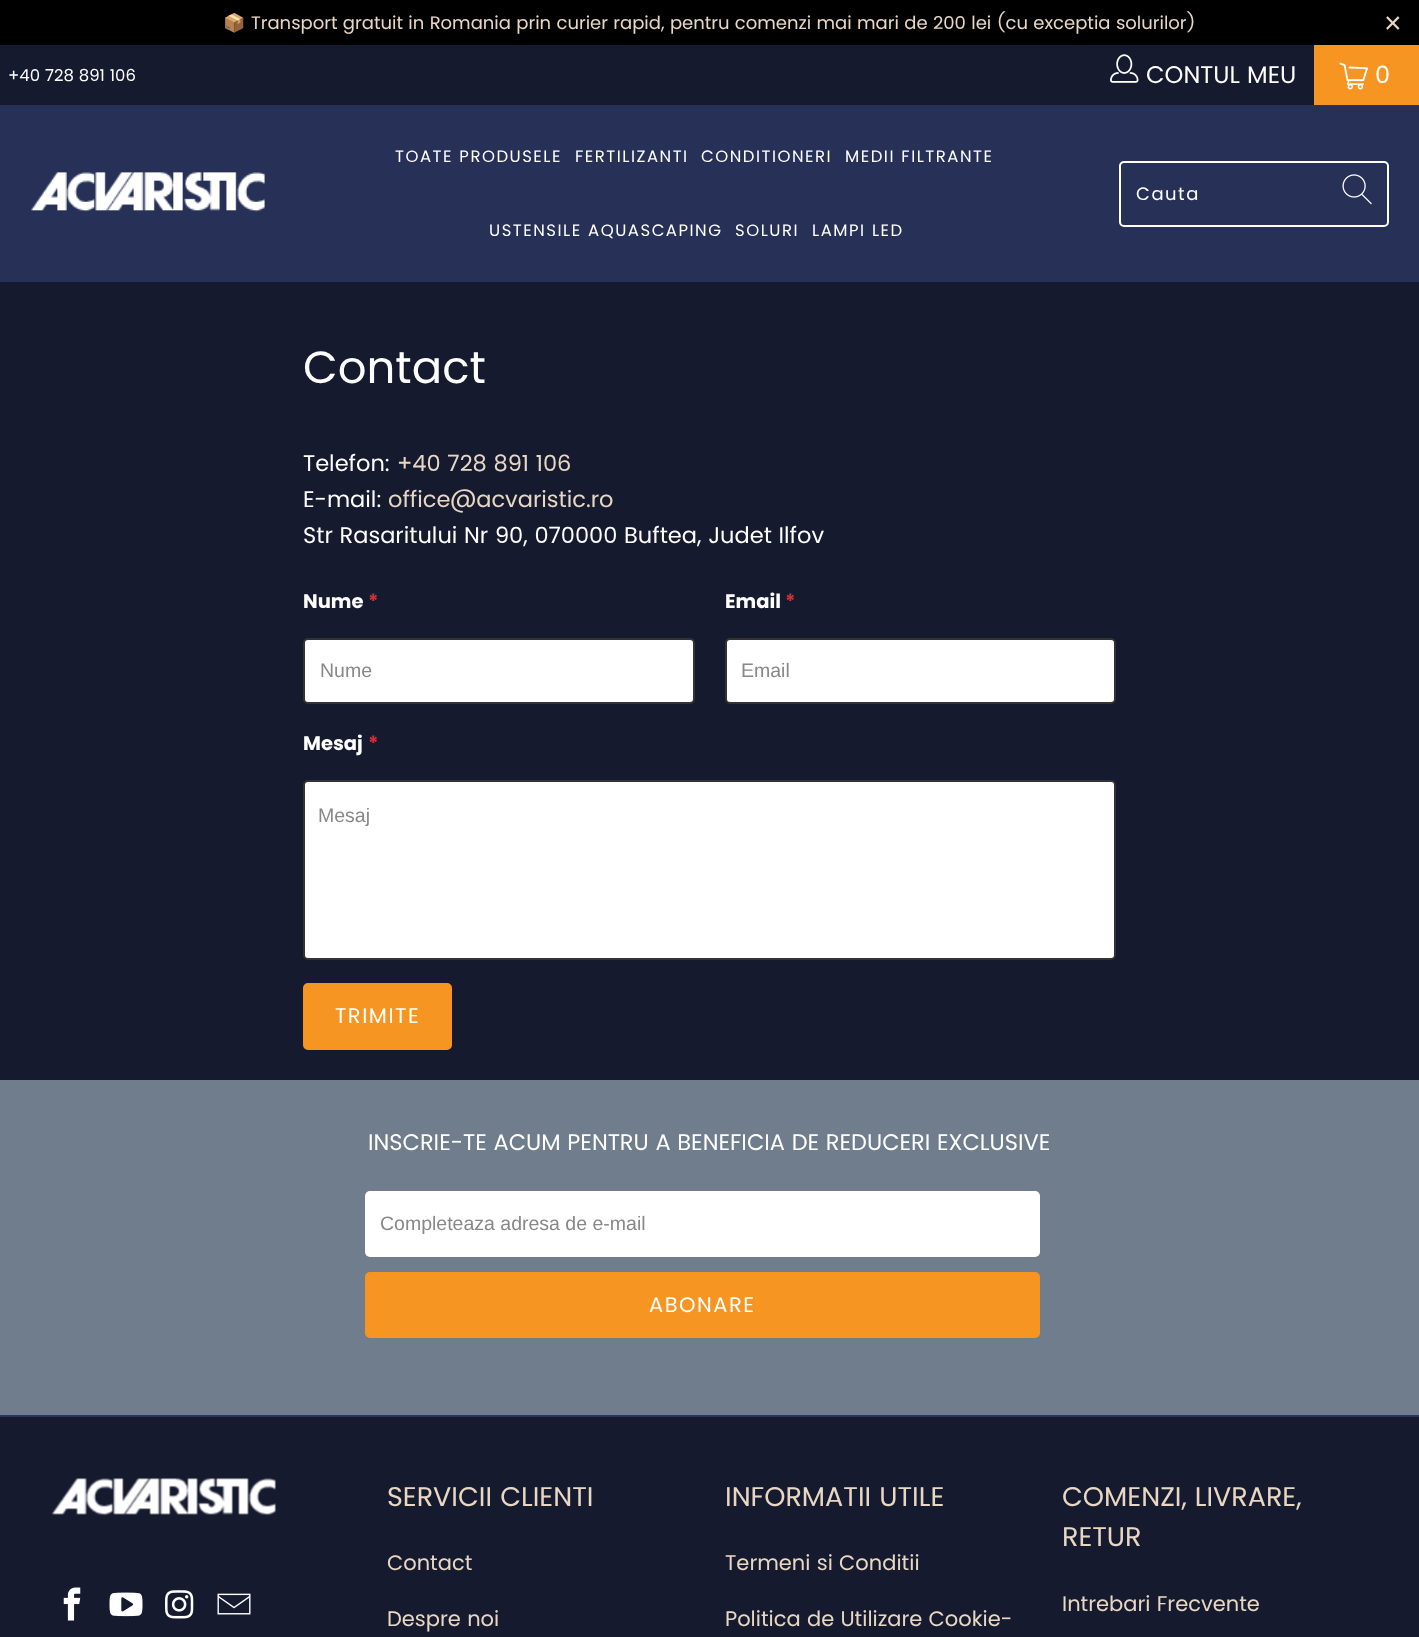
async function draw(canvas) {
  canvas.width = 1419
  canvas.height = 1637
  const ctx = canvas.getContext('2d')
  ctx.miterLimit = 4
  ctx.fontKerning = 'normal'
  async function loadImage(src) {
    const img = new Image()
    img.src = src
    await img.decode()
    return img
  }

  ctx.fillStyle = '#151a2f'
  ctx.fillRect(0, 0, 1419, 1637)
  ctx.fillStyle = '#000'
  ctx.fillRect(0, 0, 1419, 45)
  ctx.font = '18px Noto Color Emoji'
  ctx.fillStyle = '#e8d7c3'
  ctx.fillText('📦', 223, 29)
  ctx.font = '18px Poppins'
  ctx.fillText('Transport gratuit in Romania prin curier rapid, pentru comenzi mai mari de 200 lei (cu exceptia solurilor)', 251, 29)
  ctx.font = '30px Liberation Sans'
  ctx.fillText('×', 1384, 33)
  ctx.font = '16.5px Poppins'
  ctx.fillStyle = '#fff'
  ctx.fillText('+40 728 891 106', 8, 81)
  ctx.drawImage(await loadImage('image0.png'), 1110, 54, 29, 29)
  ctx.font = '24px Poppins'
  ctx.fillText('CONTUL MEU', 1146, 83)
  ctx.fillStyle = '#f79522'
  ctx.fillRect(1314, 45, 105, 60)
  ctx.drawImage(await loadImage('image1.png'), 1339, 62, 29, 28)
  ctx.fillStyle = '#fff'
  ctx.fillText('0', 1375, 83)
  ctx.fillStyle = '#273158'
  ctx.fillRect(0, 105, 1419, 177)
  ctx.drawImage(await loadImage('image2.png'), 31, 172, 234, 40)
  ctx.letterSpacing = '1.5px'
  ctx.font = '16.5px Poppins'
  ctx.fillStyle = '#fff'
  ctx.fillText('TOATE PRODUSELE', 395, 162)
  ctx.fillText('FERTILIZANTI', 575, 162)
  ctx.fillText('CONDITIONERI', 701, 162)
  ctx.fillText('MEDII FILTRANTE', 845, 162)
  ctx.fillText('USTENSILE AQUASCAPING', 489, 236)
  ctx.fillText('SOLURI', 735, 236)
  ctx.fillText('LAMPI LED', 812, 236)
  ctx.beginPath()
  ctx.roundRect(1120, 162, 268, 64, 4)
  ctx.strokeStyle = '#fff'
  ctx.lineWidth = 2
  ctx.stroke()
  ctx.font = '18px Poppins'
  ctx.fillText('Cauta', 1136, 200)
  ctx.drawImage(await loadImage('image3.png'), 1342, 174, 30, 31)
  ctx.letterSpacing = '0px'
  ctx.font = '45px Poppins'
  ctx.fillText('Contact', 303, 383)
  ctx.font = '22.5px Poppins'
  ctx.fillText('Telefon:', 303, 471)
  ctx.fillStyle = '#e8d7c3'
  ctx.fillText('+40 728 891 106', 397, 471)
  ctx.fillStyle = '#fff'
  ctx.fillText('E-mail:', 303, 507)
  ctx.fillStyle = '#e8d7c3'
  ctx.fillText('office@acvaristic.ro', 388, 507)
  ctx.fillStyle = '#fff'
  ctx.fillText('Str Rasaritului Nr 90, 070000 Buftea, Judet Ilfov', 303, 543)
  ctx.font = 'bold 19.5px Poppins'
  ctx.fillText('Nume', 303, 608)
  ctx.fillStyle = '#c33'
  ctx.fillText('*', 368, 608)
  ctx.fillStyle = '#fff'
  ctx.beginPath()
  ctx.roundRect(304, 639, 390, 64, 4)
  ctx.fill()
  ctx.strokeStyle = '#333'
  ctx.stroke()
  ctx.font = '19.5px Liberation Sans'
  ctx.fillStyle = '#888'
  ctx.fillText('Nume', 320, 677)
  ctx.font = 'bold 19.5px Poppins'
  ctx.fillStyle = '#fff'
  ctx.fillText('Email', 725, 608)
  ctx.fillStyle = '#c33'
  ctx.fillText('*', 785, 608)
  ctx.fillStyle = '#fff'
  ctx.beginPath()
  ctx.roundRect(726, 639, 389, 64, 4)
  ctx.fill()
  ctx.stroke()
  ctx.font = '19.5px Liberation Sans'
  ctx.fillStyle = '#888'
  ctx.fillText('Email', 741, 677)
  ctx.font = 'bold 19.5px Poppins'
  ctx.fillStyle = '#fff'
  ctx.fillText('Mesaj', 303, 750)
  ctx.fillStyle = '#c33'
  ctx.fillText('*', 368, 750)
  ctx.fillStyle = '#fff'
  ctx.beginPath()
  ctx.roundRect(304, 781, 811, 178, 4)
  ctx.fill()
  ctx.stroke()
  ctx.font = '19.5px Liberation Sans'
  ctx.fillStyle = '#888'
  ctx.fillText('Mesaj', 318, 822)
  ctx.fillStyle = '#f79522'
  ctx.beginPath()
  ctx.roundRect(304, 984, 147, 65, 4)
  ctx.fill()
  ctx.strokeStyle = '#f79522'
  ctx.stroke()
  ctx.letterSpacing = '1.5px'
  ctx.font = '21px Poppins'
  ctx.fillStyle = '#fff'
  ctx.fillText('TRIMITE', 335, 1023)
  ctx.fillStyle = '#6f7d8c'
  ctx.fillRect(0, 1080, 1419, 335)
  ctx.letterSpacing = '0px'
  ctx.font = '22.5px Poppins'
  ctx.fillStyle = '#fff'
  ctx.fillText('INSCRIE-TE ACUM PENTRU A BENEFICIA DE REDUCERI EXCLUSIVE', 368, 1150)
  ctx.beginPath()
  ctx.roundRect(365, 1191, 675, 66, 5)
  ctx.fill()
  ctx.font = '19.5px Liberation Sans'
  ctx.fillStyle = '#888'
  ctx.fillText('Completeaza adresa de e-mail', 380, 1230)
  ctx.fillStyle = '#f79522'
  ctx.beginPath()
  ctx.roundRect(366, 1273, 673, 64, 4)
  ctx.fill()
  ctx.stroke()
  ctx.letterSpacing = '1.5px'
  ctx.font = '21px Poppins'
  ctx.fillStyle = '#fff'
  ctx.fillText('ABONARE', 649, 1312)
  ctx.fillStyle = '#29335c'
  ctx.fillRect(0, 1415, 1419, 2)
  ctx.drawImage(await loadImage('image4.png'), 51, 1478, 225, 38)
  ctx.drawImage(await loadImage('image5.png'), 63, 1587, 18, 34)
  ctx.drawImage(await loadImage('image6.png'), 109, 1592, 34, 25)
  ctx.drawImage(await loadImage('image7.png'), 165, 1590, 29, 29)
  ctx.drawImage(await loadImage('image8.png'), 217, 1593, 34, 22)
  ctx.letterSpacing = '0px'
  ctx.font = '27px Poppins'
  ctx.fillStyle = '#e8d7c3'
  ctx.fillText('SERVICII CLIENTI', 387, 1506)
  ctx.font = '21px Poppins'
  ctx.fillText('Contact', 387, 1570)
  ctx.fillText('Despre noi', 387, 1626)
  ctx.font = '27px Poppins'
  ctx.fillText('INFORMATII UTILE', 725, 1506)
  ctx.font = '21px Poppins'
  ctx.fillText('Termeni si Conditii', 725, 1570)
  ctx.fillText('Politica de Utilizare Cookie-', 725, 1626)
  ctx.font = '27px Poppins'
  ctx.fillText('COMENZI, LIVRARE,', 1062, 1506)
  ctx.fillText('RETUR', 1062, 1546)
  ctx.font = '21px Poppins'
  ctx.fillText('Intrebari Frecvente', 1062, 1611)
}

draw(document.querySelector('canvas'))
